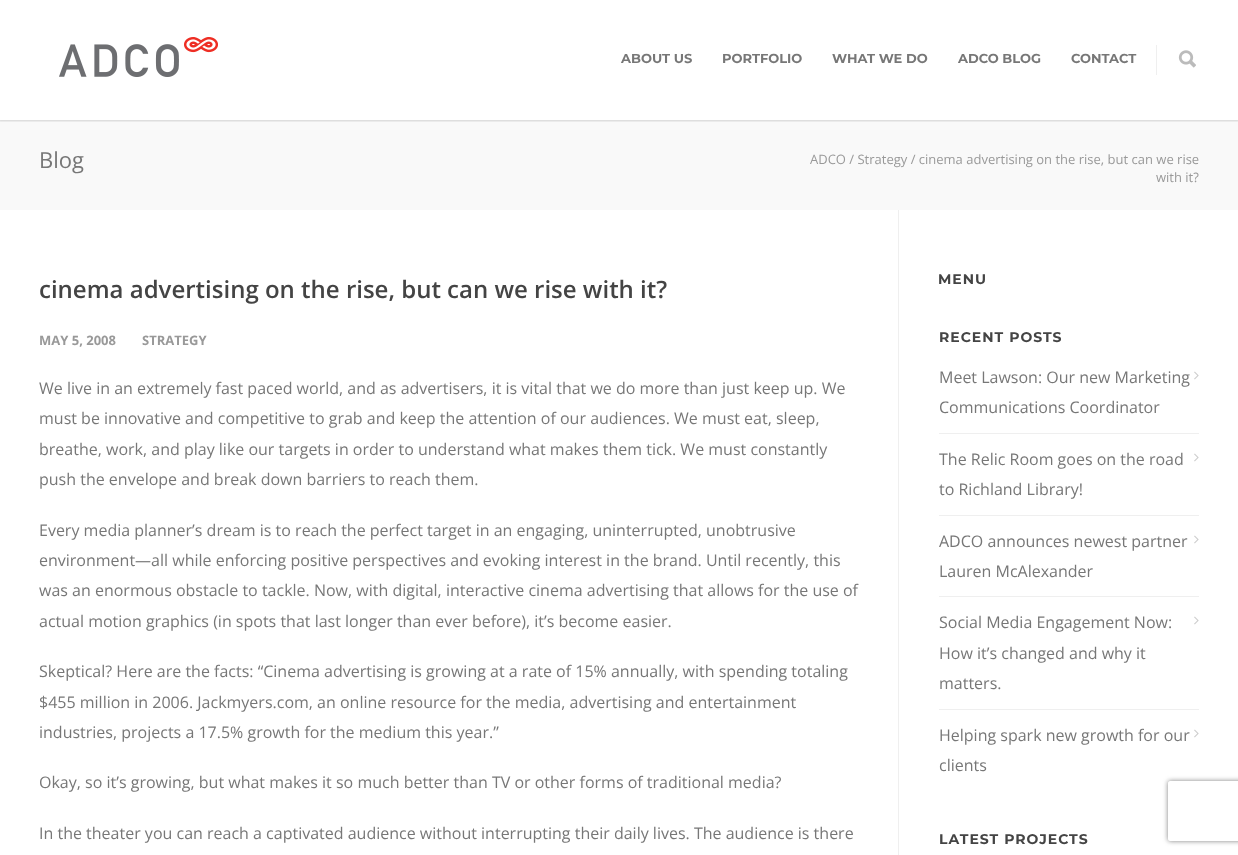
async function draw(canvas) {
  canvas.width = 1238
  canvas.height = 855
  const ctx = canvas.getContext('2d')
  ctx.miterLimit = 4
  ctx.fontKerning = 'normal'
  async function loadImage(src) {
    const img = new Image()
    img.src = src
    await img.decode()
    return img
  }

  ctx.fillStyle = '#fff'
  ctx.fillRect(0, 0, 1238, 855)
  ctx.fillStyle = '#f9f9f9'
  ctx.fillRect(0, 120, 1238, 90)
  ctx.save()
  ctx.beginPath()
  ctx.rect(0, 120, 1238, 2)
  ctx.clip()
  ctx.fillStyle = '#00000029'
  ctx.filter = 'blur(1px)'
  ctx.beginPath()
  ctx.rect(-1, -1, 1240, 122)
  ctx.fill()
  ctx.filter = 'none'
  ctx.restore()
  ctx.drawImage(await loadImage('image0.png'), 59, 37, 159, 40)
  ctx.font = 'bold 13px Montserrat'
  ctx.fillStyle = '#777'
  ctx.fillText('ABOUT US', 621, 63)
  ctx.fillText('PORTFOLIO', 722, 63)
  ctx.fillText('WHAT WE DO', 832, 63)
  ctx.fillText('ADCO BLOG', 958, 63)
  ctx.fillText('CONTACT', 1071, 63)
  ctx.fillStyle = '#efefef'
  ctx.fillRect(1156, 45, 1, 30)
  ctx.drawImage(await loadImage('image1.png'), 1178, 50, 18, 18)
  ctx.font = '22px Open Sans'
  ctx.fillStyle = '#777'
  ctx.fillText('Blog', 39, 168)
  ctx.font = '13px Open Sans'
  ctx.fillStyle = '#999'
  ctx.fillText('ADCO / Strategy / cinema advertising on the rise, but can we rise', 810, 164)
  ctx.fillText('with it?', 1156, 182)
  ctx.fillStyle = '#efefef'
  ctx.fillRect(898, 210, 1, 645)
  ctx.font = '600 24px Open Sans'
  ctx.fillStyle = '#444'
  ctx.fillText('cinema advertising on the rise, but can we rise with it?', 39, 298)
  ctx.font = 'bold 13px Open Sans'
  ctx.fillStyle = '#999'
  ctx.fillText('MAY 5, 2008', 39, 345)
  ctx.fillText('STRATEGY', 142, 345)
  ctx.font = '16px Open Sans'
  ctx.fillStyle = '#777'
  ctx.fillText('We live in an extremely fast paced world, and as advertisers, it is vital that we do more than just keep up. We', 39, 394)
  ctx.fillText('must be innovative and competitive to grab and keep the attention of our audiences. We must eat, sleep,', 39, 424)
  ctx.fillText('breathe, work, and play like our targets in order to understand what makes them tick. We must constantly', 39, 455)
  ctx.fillText('push the envelope and break down barriers to reach them.', 39, 485)
  ctx.fillText('Every media planner’s dream is to reach the perfect target in an engaging, uninterrupted, unobtrusive', 39, 536)
  ctx.fillText('environment—all while enforcing positive perspectives and evoking interest in the brand. Until recently, this', 39, 566)
  ctx.fillText('was an enormous obstacle to tackle. Now, with digital, interactive cinema advertising that allows for the use of', 39, 596)
  ctx.fillText('actual motion graphics (in spots that last longer than ever before), it’s become easier.', 39, 627)
  ctx.fillText('Skeptical? Here are the facts: “Cinema advertising is growing at a rate of 15% annually, with spending totaling', 39, 677)
  ctx.fillText('$455 million in 2006. Jackmyers.com, an online resource for the media, advertising and entertainment', 39, 708)
  ctx.fillText('industries, projects a 17.5% growth for the medium this year.”', 39, 738)
  ctx.fillText('Okay, so it’s growing, but what makes it so much better than TV or other forms of traditional media?', 39, 788)
  ctx.fillText('In the theater you can reach a captivated audience without interrupting their daily lives. The audience is there', 39, 839)
  ctx.letterSpacing = '1px'
  ctx.font = 'bold 14px Montserrat'
  ctx.fillStyle = '#444'
  ctx.fillText('MENU', 938, 284)
  ctx.fillText('RECENT POSTS', 939, 342)
  ctx.fillStyle = '#efefef'
  ctx.fillRect(939, 433, 260, 1)
  ctx.letterSpacing = '0px'
  ctx.font = '16px Open Sans'
  ctx.fillStyle = '#777'
  ctx.fillText('Meet Lawson: Our new Marketing', 939, 383)
  ctx.fillText('Communications Coordinator', 939, 413)
  ctx.drawImage(await loadImage('image2.png'), 1194, 371, 5, 9)
  ctx.fillStyle = '#efefef'
  ctx.fillRect(939, 515, 260, 1)
  ctx.fillStyle = '#777'
  ctx.fillText('The Relic Room goes on the road', 939, 465)
  ctx.fillText('to Richland Library!', 939, 495)
  ctx.drawImage(await loadImage('image2.png'), 1194, 453, 5, 9)
  ctx.fillStyle = '#efefef'
  ctx.fillRect(939, 596, 260, 1)
  ctx.fillStyle = '#777'
  ctx.fillText('ADCO announces newest partner', 939, 547)
  ctx.fillText('Lauren McAlexander', 939, 577)
  ctx.drawImage(await loadImage('image2.png'), 1194, 535, 5, 9)
  ctx.fillStyle = '#efefef'
  ctx.fillRect(939, 709, 260, 1)
  ctx.fillStyle = '#777'
  ctx.fillText('Social Media Engagement Now:', 939, 628)
  ctx.fillText('How it’s changed and why it', 939, 659)
  ctx.fillText('matters.', 939, 689)
  ctx.drawImage(await loadImage('image2.png'), 1194, 616, 5, 9)
  ctx.fillText('Helping spark new growth for our', 939, 741)
  ctx.fillText('clients', 939, 771)
  ctx.drawImage(await loadImage('image2.png'), 1194, 729, 5, 9)
  ctx.letterSpacing = '1px'
  ctx.font = 'bold 14px Montserrat'
  ctx.fillStyle = '#444'
  ctx.fillText('LATEST PROJECTS', 939, 844)
  ctx.save()
  ctx.beginPath()
  ctx.moveTo(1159, 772)
  ctx.lineTo(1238, 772)
  ctx.lineTo(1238, 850)
  ctx.lineTo(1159, 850)
  ctx.closePath()
  ctx.moveTo(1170, 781)
  ctx.lineTo(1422, 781)
  ctx.bezierCurveTo(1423, 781, 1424, 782, 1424, 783)
  ctx.lineTo(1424, 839)
  ctx.bezierCurveTo(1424, 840, 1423, 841, 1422, 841)
  ctx.lineTo(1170, 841)
  ctx.bezierCurveTo(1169, 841, 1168, 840, 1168, 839)
  ctx.lineTo(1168, 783)
  ctx.bezierCurveTo(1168, 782, 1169, 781, 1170, 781)
  ctx.closePath()
  ctx.clip('evenodd')
  ctx.fillStyle = '#808080'
  ctx.filter = 'blur(2.5px)'
  ctx.beginPath()
  ctx.roundRect(1168, 781, 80, 60, 2)
  ctx.fill()
  ctx.filter = 'none'
  ctx.restore()
}

draw(document.querySelector('canvas'))
